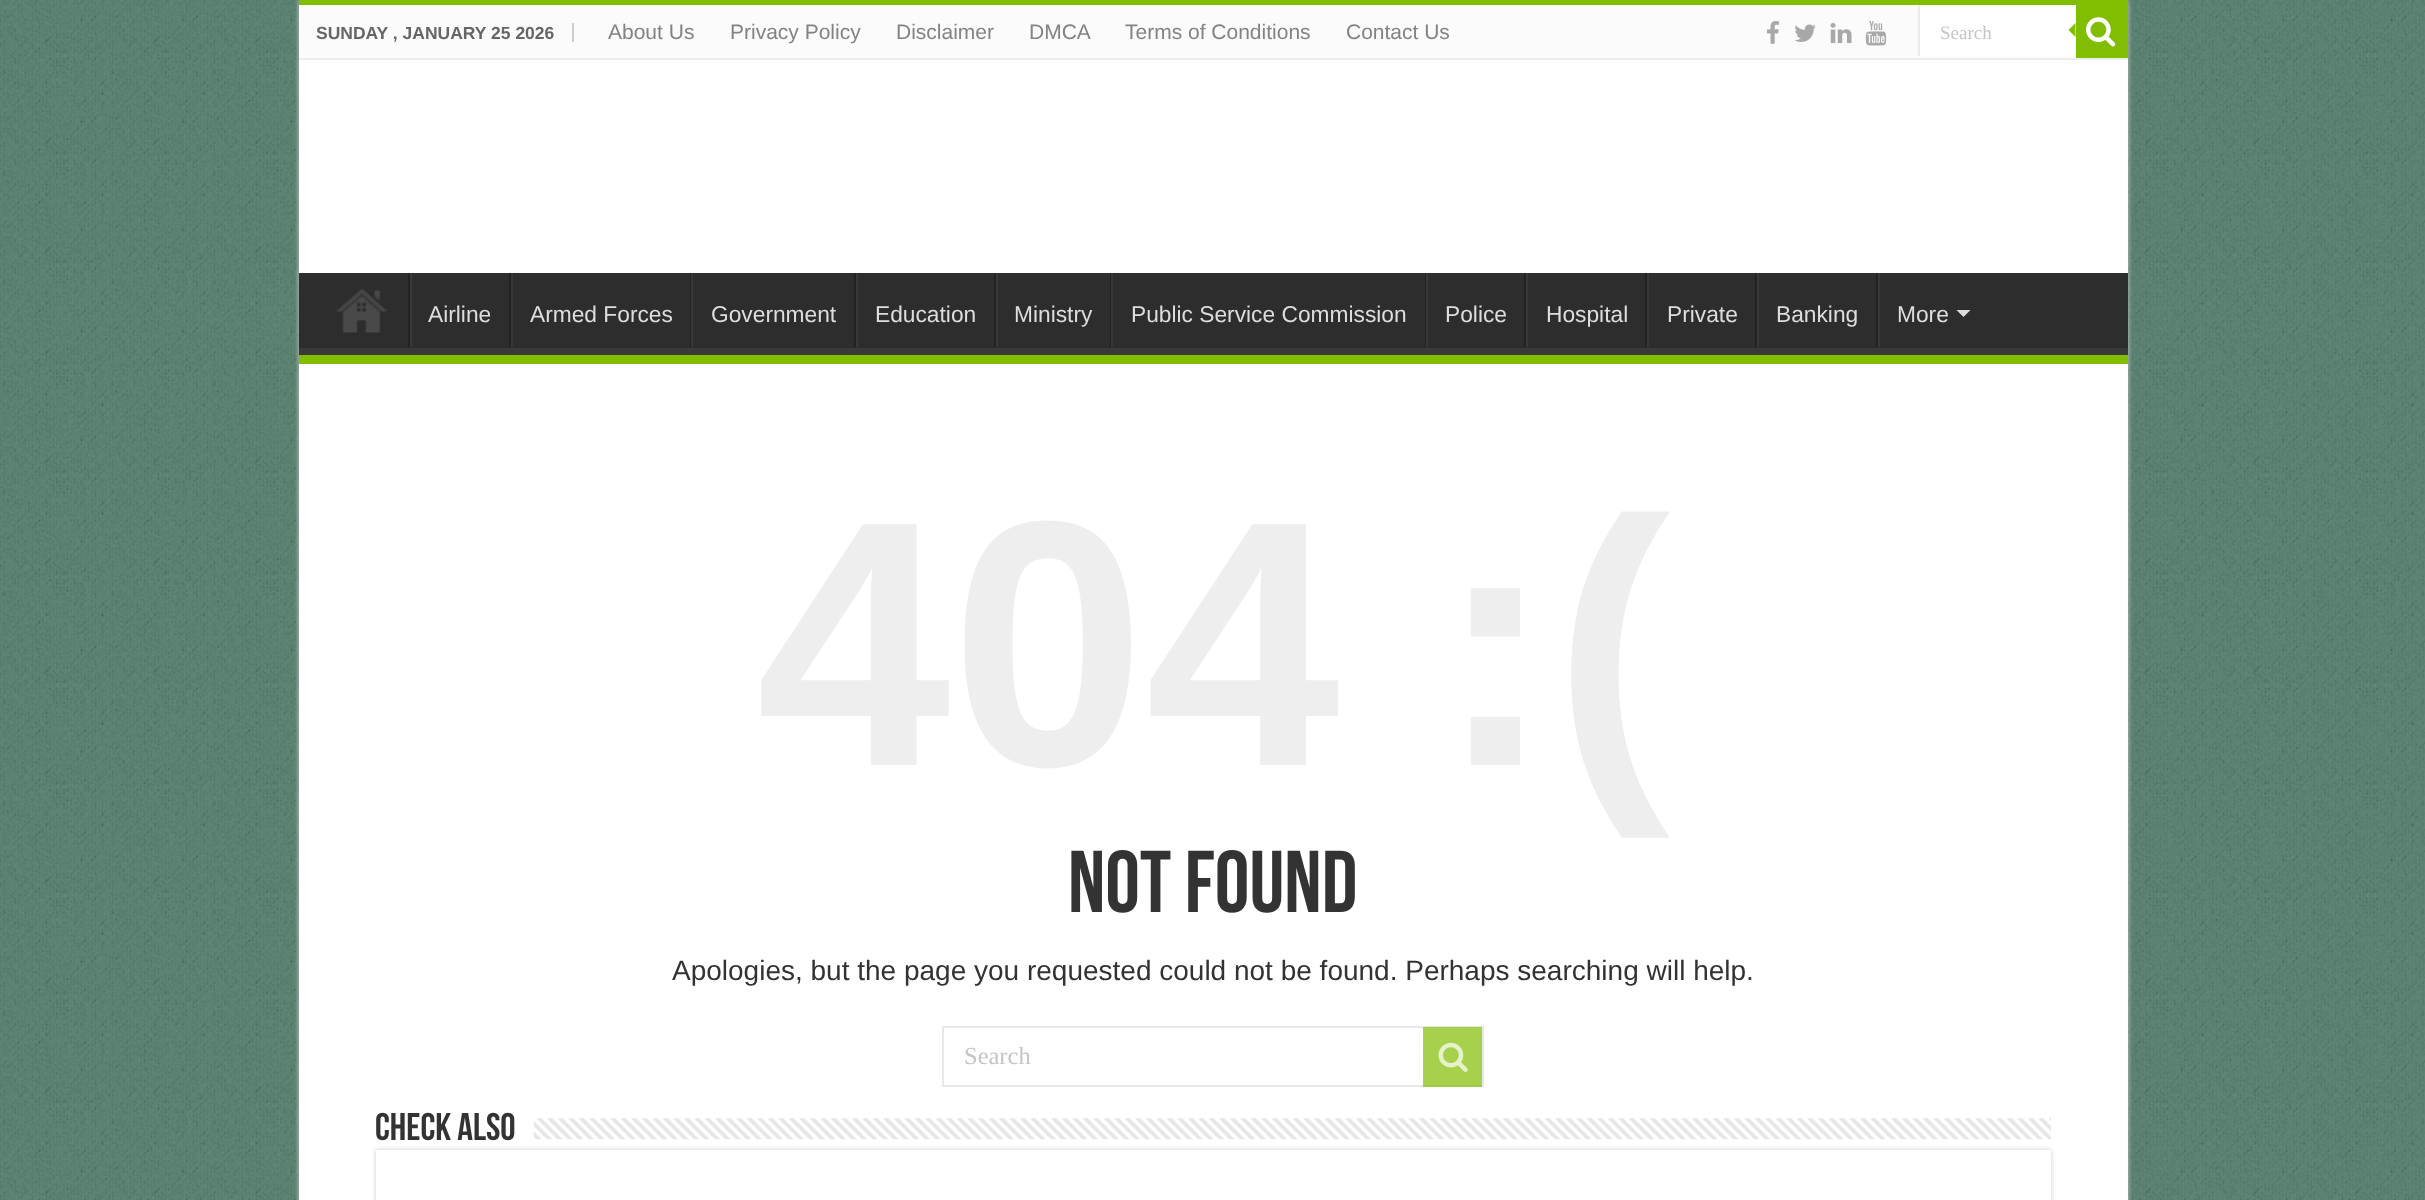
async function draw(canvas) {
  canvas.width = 2425
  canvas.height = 1200
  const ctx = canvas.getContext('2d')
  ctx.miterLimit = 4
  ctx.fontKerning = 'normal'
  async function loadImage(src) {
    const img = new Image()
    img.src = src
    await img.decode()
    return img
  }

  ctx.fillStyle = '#346751'
  ctx.fillRect(0, 0, 2425, 1200)
  ctx.drawImage(await loadImage('image0.png'), 0, 0, 2425, 1200)
  ctx.fillStyle = '#cacaca'
  ctx.filter = 'blur(2.5px)'
  ctx.beginPath()
  ctx.rect(299, 0, 1829, 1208)
  ctx.fill()
  ctx.filter = 'none'
  ctx.fillStyle = '#fff'
  ctx.fillRect(299, 60, 1829, 1140)
  ctx.fillStyle = '#81bd00'
  ctx.fillRect(299, 0, 1829, 5)
  ctx.fillStyle = '#fbfbfb'
  ctx.fillRect(299, 5, 1777, 53)
  ctx.fillStyle = '#ececec'
  ctx.fillRect(299, 58, 1829, 2)
  ctx.fillStyle = '#ccc'
  ctx.fillRect(572, 23, 2, 19)
  ctx.font = 'bold 17.5px Liberation Sans'
  ctx.fillStyle = '#666'
  ctx.fillText('SUNDAY , JANUARY 25 2026', 316, 39)
  ctx.font = '21px Liberation Sans'
  ctx.fillStyle = '#838383'
  ctx.fillText('About Us', 608, 39)
  ctx.fillText('Privacy Policy', 730, 39)
  ctx.fillText('Disclaimer', 896, 39)
  ctx.fillText('DMCA', 1029, 39)
  ctx.fillText('Terms of Conditions', 1125, 39)
  ctx.fillText('Contact Us', 1346, 39)
  ctx.drawImage(await loadImage('image1.png'), 1767, 21, 12, 23)
  ctx.drawImage(await loadImage('image2.png'), 1794, 24, 22, 18)
  ctx.drawImage(await loadImage('image3.png'), 1830, 23, 22, 21)
  ctx.drawImage(await loadImage('image4.png'), 1865, 21, 22, 25)
  ctx.fillStyle = '#fff'
  ctx.fillRect(1920, 5, 156, 51)
  ctx.fillStyle = '#ececec'
  ctx.fillRect(1918, 5, 2, 51)
  ctx.font = '19px Liberation Serif'
  ctx.fillStyle = '#c5c5c5'
  ctx.fillText('Search', 1940, 39)
  ctx.fillStyle = '#81bd00'
  ctx.fillRect(2076, 5, 52, 53)
  ctx.drawImage(await loadImage('image5.png'), 2086, 17, 30, 30)
  ctx.beginPath()
  ctx.moveTo(2075.5, 23)
  ctx.lineTo(2075.5, 37)
  ctx.lineTo(2068.5, 30)
  ctx.closePath()
  ctx.fill()
  ctx.fillStyle = '#2d2d2d'
  ctx.fillRect(299, 273, 1829, 75)
  ctx.save()
  ctx.beginPath()
  ctx.rect(299, 273, 1829, 82)
  ctx.clip()
  ctx.fillStyle = '#393939'
  ctx.beginPath()
  ctx.moveTo(126, 100)
  ctx.lineTo(2301, 100)
  ctx.lineTo(2301, 528)
  ctx.lineTo(126, 528)
  ctx.closePath()
  ctx.moveTo(298, 262)
  ctx.lineTo(2126, 262)
  ctx.bezierCurveTo(2127, 262, 2128, 263, 2128, 264)
  ctx.lineTo(2128, 346)
  ctx.bezierCurveTo(2128, 347, 2127, 348, 2126, 348)
  ctx.lineTo(298, 348)
  ctx.bezierCurveTo(297, 348, 296, 347, 296, 346)
  ctx.lineTo(296, 264)
  ctx.bezierCurveTo(296, 263, 297, 262, 298, 262)
  ctx.closePath()
  ctx.fill('evenodd')
  ctx.restore()
  ctx.fillStyle = '#81bd00'
  ctx.fillRect(299, 355, 1829, 9)
  ctx.drawImage(await loadImage('image6.png'), 336, 288, 51, 45)
  ctx.fillStyle = '#222'
  ctx.fillRect(408, 273, 2, 74)
  ctx.fillStyle = '#383838'
  ctx.fillRect(410, 273, 2, 74)
  ctx.font = '22.75px Liberation Sans'
  ctx.fillStyle = '#ddd'
  ctx.fillText('Airline', 428, 322)
  ctx.fillStyle = '#222'
  ctx.fillRect(509, 273, 2, 74)
  ctx.fillStyle = '#383838'
  ctx.fillRect(511, 273, 2, 74)
  ctx.fillStyle = '#ddd'
  ctx.fillText('Armed Forces', 530, 322)
  ctx.fillStyle = '#222'
  ctx.fillRect(690, 273, 1, 74)
  ctx.fillStyle = '#383838'
  ctx.fillRect(691, 273, 2, 74)
  ctx.fillStyle = '#ddd'
  ctx.fillText('Government', 711, 322)
  ctx.fillStyle = '#222'
  ctx.fillRect(854, 273, 2, 74)
  ctx.fillStyle = '#383838'
  ctx.fillRect(856, 273, 2, 74)
  ctx.fillStyle = '#ddd'
  ctx.fillText('Education', 875, 322)
  ctx.fillStyle = '#222'
  ctx.fillRect(994, 273, 2, 74)
  ctx.fillStyle = '#383838'
  ctx.fillRect(996, 273, 2, 74)
  ctx.fillStyle = '#ddd'
  ctx.fillText('Ministry', 1014, 322)
  ctx.fillStyle = '#222'
  ctx.fillRect(1110, 273, 1, 74)
  ctx.fillStyle = '#383838'
  ctx.fillRect(1111, 273, 2, 74)
  ctx.fillStyle = '#ddd'
  ctx.fillText('Public Service Commission', 1131, 322)
  ctx.fillStyle = '#222'
  ctx.fillRect(1425, 273, 1, 74)
  ctx.fillStyle = '#383838'
  ctx.fillRect(1426, 273, 2, 74)
  ctx.fillStyle = '#ddd'
  ctx.fillText('Police', 1445, 322)
  ctx.fillStyle = '#222'
  ctx.fillRect(1524, 273, 2, 74)
  ctx.fillStyle = '#383838'
  ctx.fillRect(1526, 273, 2, 74)
  ctx.fillStyle = '#ddd'
  ctx.fillText('Hospital', 1546, 322)
  ctx.fillStyle = '#222'
  ctx.fillRect(1645, 273, 2, 74)
  ctx.fillStyle = '#383838'
  ctx.fillRect(1647, 273, 2, 74)
  ctx.fillStyle = '#ddd'
  ctx.fillText('Private', 1667, 322)
  ctx.fillStyle = '#222'
  ctx.fillRect(1755, 273, 2, 74)
  ctx.fillStyle = '#383838'
  ctx.fillRect(1757, 273, 2, 74)
  ctx.fillStyle = '#ddd'
  ctx.fillText('Banking', 1776, 322)
  ctx.fillStyle = '#222'
  ctx.fillRect(1876, 273, 2, 74)
  ctx.fillStyle = '#383838'
  ctx.fillRect(1878, 273, 2, 74)
  ctx.fillStyle = '#ddd'
  ctx.fillText('More', 1897, 322)
  ctx.beginPath()
  ctx.moveTo(1956.5, 310)
  ctx.lineTo(1970.5, 310)
  ctx.lineTo(1963.5, 317)
  ctx.closePath()
  ctx.fill()
  ctx.font = 'bold 350px Liberation Sans'
  ctx.fillStyle = '#eee'
  ctx.fillText('404 :(', 756, 765)
  ctx.font = 'bold 87.5px Bebas Neue'
  ctx.fillStyle = '#333'
  ctx.fillText('Not Found', 1068, 912)
  ctx.font = '28px Liberation Sans'
  ctx.fillText('Apologies, but the page you requested could not be found. Perhaps searching will help.', 672, 980)
  ctx.strokeStyle = '#e8e8e8'
  ctx.lineWidth = 2
  ctx.strokeRect(943, 1027, 540, 59)
  ctx.font = '24.5px Liberation Serif'
  ctx.fillStyle = '#c5c5c5'
  ctx.fillText('Search', 964, 1064)
  ctx.fillStyle = '#81bd00b3'
  ctx.fillRect(1423, 1027, 59, 60)
  ctx.drawImage(await loadImage('image7.png'), 1438, 1042, 30, 30)
  ctx.font = 'bold 38.5px Bebas Neue'
  ctx.fillStyle = '#333'
  ctx.fillText('Check Also', 375, 1140)
  ctx.drawImage(await loadImage('image8.png'), 533, 1118, 1518, 22)
  ctx.fillStyle = '#cacaca'
  ctx.filter = 'blur(2.5px)'
  ctx.beginPath()
  ctx.rect(376, 1150, 1675, 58)
  ctx.fill()
  ctx.filter = 'none'
  ctx.fillStyle = '#fff'
  ctx.fillRect(376, 1150, 1675, 50)
}

draw(document.querySelector('canvas'))
